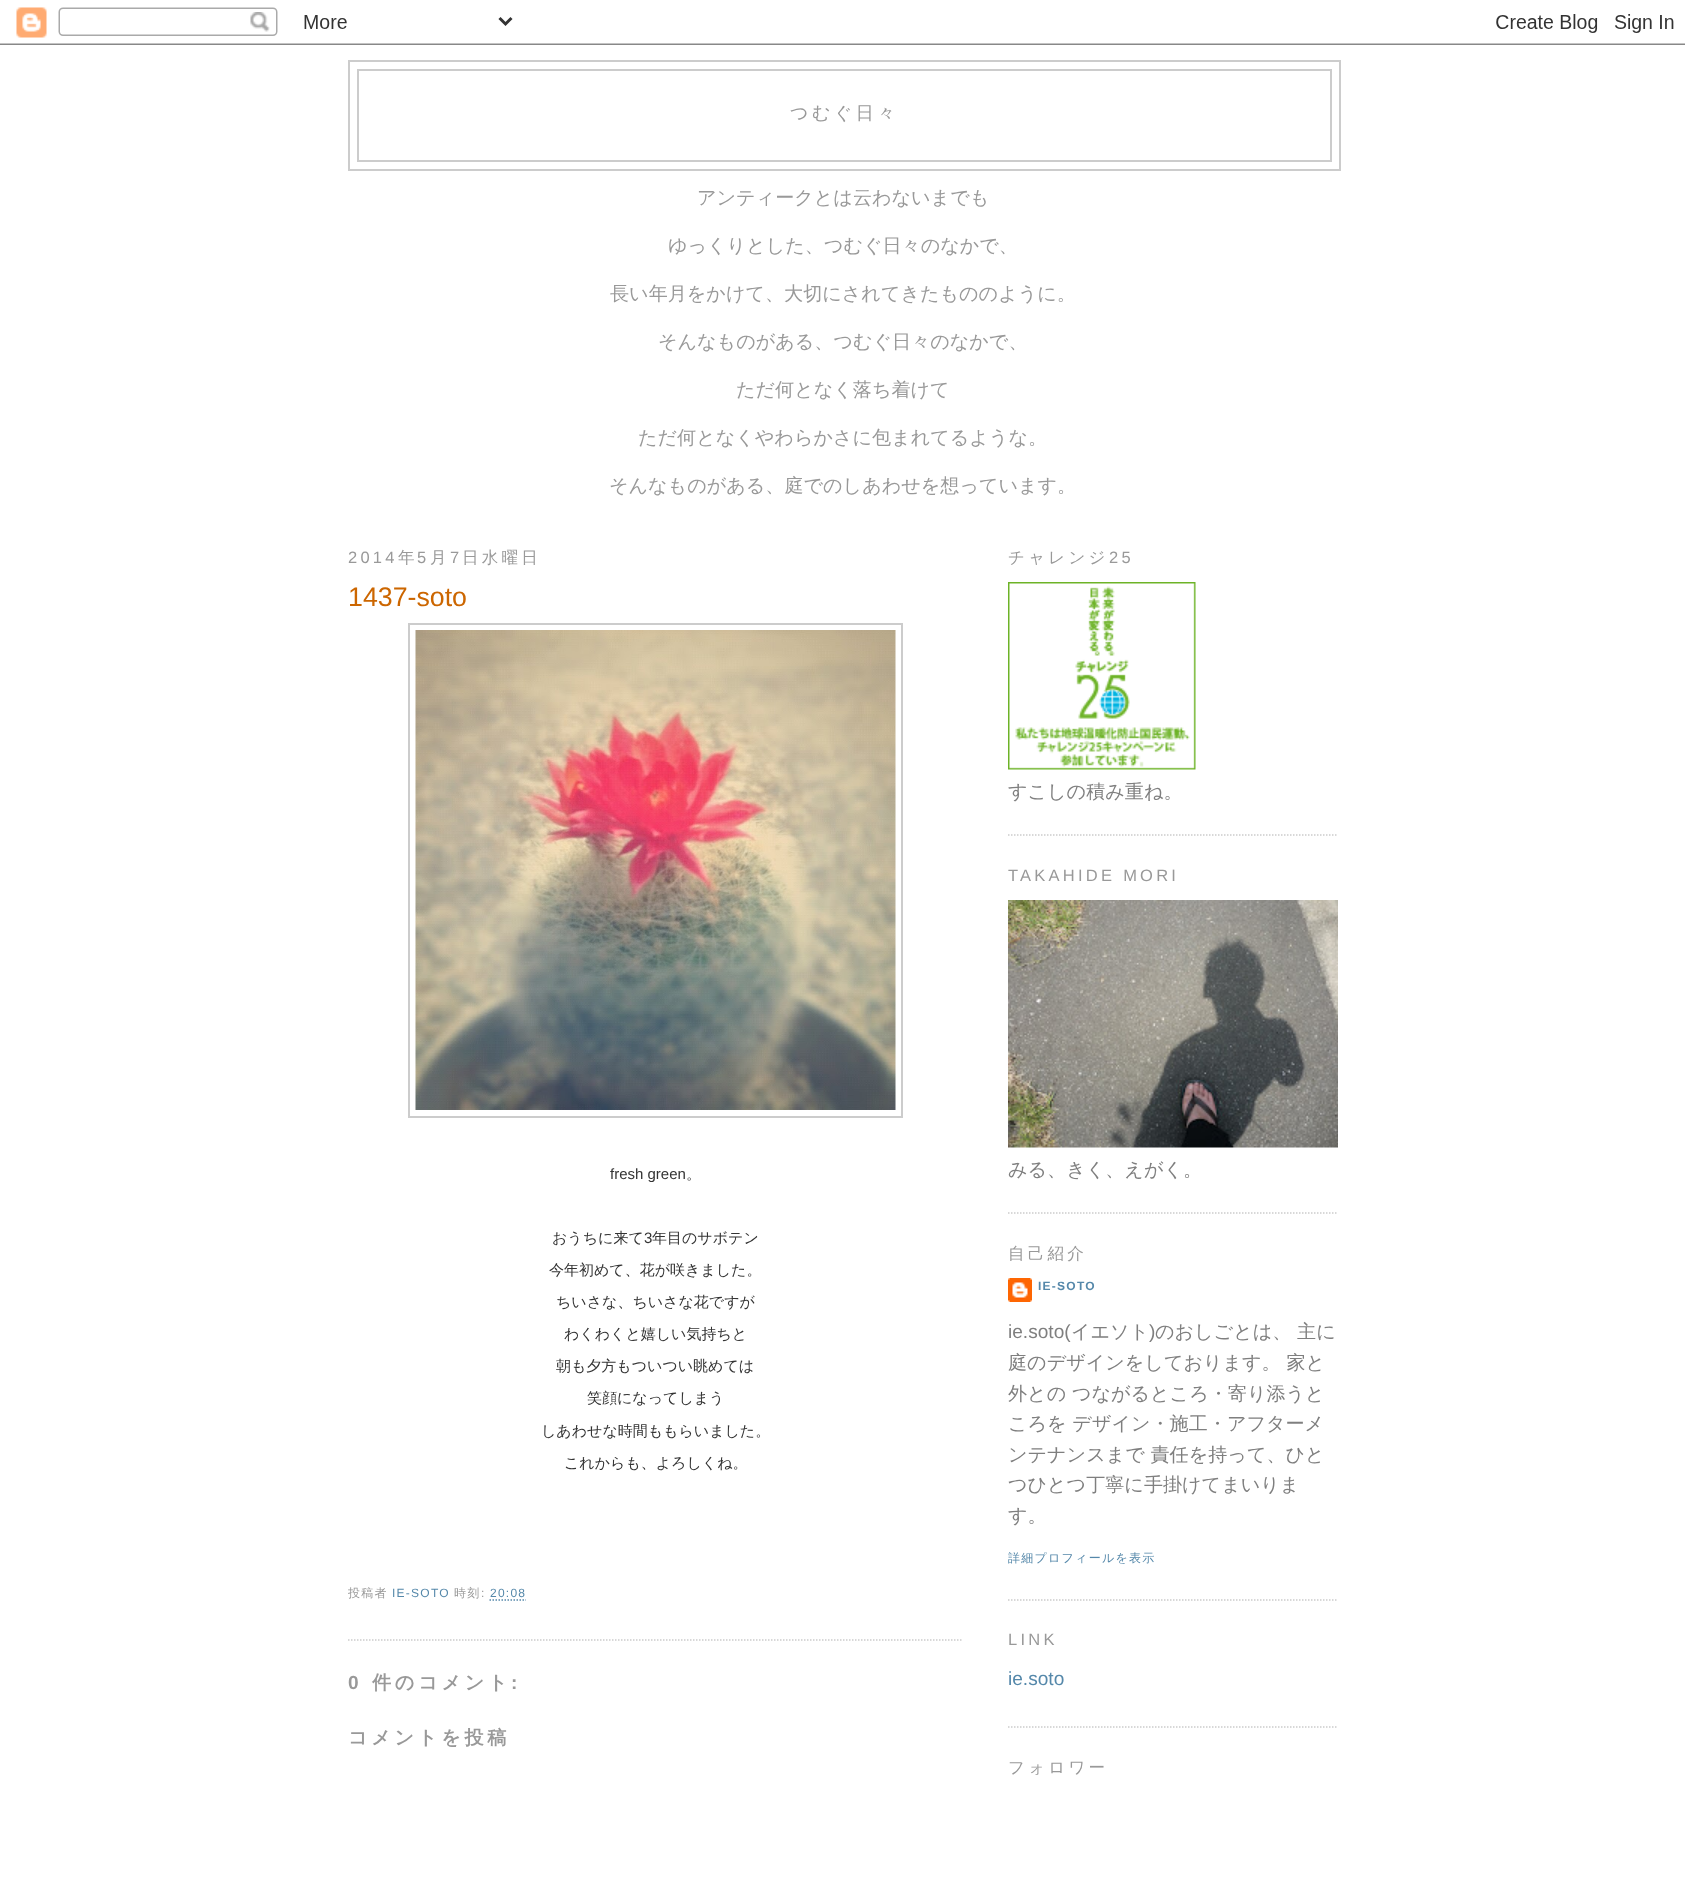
async function draw(canvas) {
  canvas.width = 1685
  canvas.height = 1902
  const ctx = canvas.getContext('2d')
  ctx.miterLimit = 4
  ctx.fontKerning = 'normal'
  async function loadImage(src) {
    const img = new Image()
    img.src = src
    await img.decode()
    return img
  }

  ctx.fillStyle = '#fff'
  ctx.fillRect(0, 0, 1685, 1902)
  ctx.drawImage(await loadImage('image0.png'), 0, 7, 1685, 38)
  ctx.strokeStyle = '#ccc'
  ctx.lineWidth = 2
  ctx.strokeRect(349, 61, 991, 109)
  ctx.strokeRect(358, 70, 973, 91)
  ctx.letterSpacing = '3.5px'
  ctx.font = '500 18px WenQuanYi Zen Hei'
  ctx.fillStyle = '#999'
  ctx.fillText('つむぐ日々', 790, 119)
  ctx.letterSpacing = '0px'
  ctx.font = '500 19.1px WenQuanYi Zen Hei'
  ctx.fillText('アンティークとは云わないまでも', 697, 204)
  ctx.fillText('ゆっくりとした、つむぐ日々のなかで、', 668, 252)
  ctx.fillText('長い年月をかけて、大切にされてきたもののように。', 610, 300)
  ctx.fillText('そんなものがある、つむぐ日々のなかで、', 658, 348)
  ctx.fillText('ただ何となく落ち着けて', 736, 396)
  ctx.fillText('ただ何となくやわらかさに包まれてるような。', 638, 444)
  ctx.fillText('そんなものがある、庭でのしあわせを想っています。', 609, 492)
  ctx.letterSpacing = '3.25px'
  ctx.font = '16.5px Liberation Sans'
  ctx.fillText('2014', 348, 563)
  ctx.font = '500 16.5px WenQuanYi Zen Hei'
  ctx.fillText('年', 398, 563)
  ctx.font = '16.5px Liberation Sans'
  ctx.fillText('5', 417, 563)
  ctx.font = '500 16.5px WenQuanYi Zen Hei'
  ctx.fillText('月', 430, 563)
  ctx.font = '16.5px Liberation Sans'
  ctx.fillText('7', 450, 563)
  ctx.font = '500 16.5px WenQuanYi Zen Hei'
  ctx.fillText('日水曜日', 462, 563)
  ctx.beginPath()
  ctx.moveTo(348, 1640)
  ctx.lineTo(963, 1640)
  ctx.lineWidth = 1.5
  ctx.setLineDash([1.5, 1.5])
  ctx.stroke()
  ctx.letterSpacing = '0px'
  ctx.font = '26.75px Liberation Sans'
  ctx.fillStyle = '#c60'
  ctx.fillText('1437-soto', 348, 606)
  ctx.lineWidth = 2
  ctx.setLineDash([])
  ctx.strokeRect(409, 624, 493, 493)
  ctx.drawImage(await loadImage('image1.png'), 415, 630, 481, 480)
  ctx.font = '15px Liberation Sans'
  ctx.fillStyle = '#333'
  ctx.fillText('fresh green', 610, 1179)
  ctx.font = '500 15px WenQuanYi Zen Hei'
  ctx.fillText('。', 686, 1179)
  ctx.fillText('おうちに来て', 552, 1243)
  ctx.font = '15px Liberation Sans'
  ctx.fillText('3', 644, 1243)
  ctx.font = '500 15px WenQuanYi Zen Hei'
  ctx.fillText('年目のサボテン', 652, 1243)
  ctx.fillText('今年初めて、花が咲きました。', 549, 1275)
  ctx.fillText('ちいさな、ちいさな花ですが', 556, 1307)
  ctx.fillText('わくわくと嬉しい気持ちと', 564, 1339)
  ctx.fillText('朝も夕方もついつい眺めては', 556, 1371)
  ctx.fillText('笑顔になってしまう', 587, 1403)
  ctx.fillText('しあわせな時間ももらいました。', 541, 1436)
  ctx.fillText('これからも、よろしくね。', 564, 1468)
  ctx.letterSpacing = '1.25px'
  ctx.font = '500 12px WenQuanYi Zen Hei'
  ctx.fillStyle = '#999'
  ctx.fillText('投稿者', 348, 1597)
  ctx.font = '12px Liberation Sans'
  ctx.fillStyle = '#58a'
  ctx.fillText('IE-SOTO', 392, 1597)
  ctx.font = '500 12px WenQuanYi Zen Hei'
  ctx.fillStyle = '#999'
  ctx.fillText('時刻', 454, 1597)
  ctx.font = '12px Liberation Sans'
  ctx.fillText(':', 481, 1597)
  ctx.fillStyle = '#58a'
  ctx.fillText('20:08', 490, 1597)
  ctx.beginPath()
  ctx.moveTo(489.5, 1600)
  ctx.lineTo(526, 1600)
  ctx.strokeStyle = '#58a'
  ctx.lineWidth = 1.5
  ctx.setLineDash([1.5, 1.5])
  ctx.stroke()
  ctx.letterSpacing = '3.75px'
  ctx.font = 'bold 19.1px Liberation Sans'
  ctx.fillStyle = '#999'
  ctx.fillText('0', 348, 1689)
  ctx.font = 'bold 19.1px WenQuanYi Zen Hei'
  ctx.fillText('件のコメント', 372, 1689)
  ctx.font = 'bold 19.1px Liberation Sans'
  ctx.fillText(':', 511, 1689)
  ctx.font = 'bold 19.1px WenQuanYi Zen Hei'
  ctx.fillText('コメントを投稿', 348, 1744)
  ctx.beginPath()
  ctx.moveTo(1008, 835)
  ctx.lineTo(1338, 835)
  ctx.strokeStyle = '#ccc'
  ctx.stroke()
  ctx.letterSpacing = '3.25px'
  ctx.font = '500 16.5px WenQuanYi Zen Hei'
  ctx.fillText('チャレンジ', 1008, 563)
  ctx.font = '16.5px Liberation Sans'
  ctx.fillText('25', 1109, 563)
  ctx.drawImage(await loadImage('image2.png'), 1008, 582, 188, 188)
  ctx.letterSpacing = '0px'
  ctx.font = '500 19.1px WenQuanYi Zen Hei'
  ctx.fillStyle = '#7f7f7f'
  ctx.fillText('すこしの積み重ね。', 1008, 798)
  ctx.beginPath()
  ctx.moveTo(1008, 1213)
  ctx.lineTo(1338, 1213)
  ctx.stroke()
  ctx.letterSpacing = '3.25px'
  ctx.font = '16.5px Liberation Sans'
  ctx.fillStyle = '#999'
  ctx.fillText('TAKAHIDE MORI', 1008, 881)
  ctx.drawImage(await loadImage('image3.png'), 1008, 900, 330, 248)
  ctx.letterSpacing = '0px'
  ctx.font = '500 19.1px WenQuanYi Zen Hei'
  ctx.fillStyle = '#7f7f7f'
  ctx.fillText('みる、きく、えがく。', 1008, 1176)
  ctx.beginPath()
  ctx.moveTo(1008, 1600)
  ctx.lineTo(1338, 1600)
  ctx.stroke()
  ctx.letterSpacing = '3.25px'
  ctx.font = '500 16.5px WenQuanYi Zen Hei'
  ctx.fillStyle = '#999'
  ctx.fillText('自己紹介', 1008, 1259)
  ctx.drawImage(await loadImage('image4.png'), 1008, 1278, 24, 24)
  ctx.letterSpacing = '1.25px'
  ctx.font = 'bold 12px Liberation Sans'
  ctx.fillStyle = '#58a'
  ctx.fillText('IE-SOTO', 1038, 1290)
  ctx.letterSpacing = '0px'
  ctx.font = '19.1px Liberation Sans'
  ctx.fillStyle = '#7f7f7f'
  ctx.fillText('ie.soto(', 1008, 1338)
  ctx.font = '500 19.1px WenQuanYi Zen Hei'
  ctx.fillText('イエソト', 1071, 1338)
  ctx.font = '19.1px Liberation Sans'
  ctx.fillText(')', 1149, 1338)
  ctx.font = '500 19.1px WenQuanYi Zen Hei'
  ctx.fillText('のおしごとは、 主に', 1155, 1338)
  ctx.fillText('庭のデザインをしております。 家と', 1008, 1369)
  ctx.fillText('外との つながるところ・寄り添うと', 1008, 1400)
  ctx.fillText('ころを デザイン・施工・アフターメ', 1008, 1430)
  ctx.fillText('ンテナンスまで 責任を持って、ひと', 1008, 1461)
  ctx.fillText('つひとつ丁寧に手掛けてまいりま', 1008, 1491)
  ctx.fillText('す。', 1008, 1522)
  ctx.letterSpacing = '1.25px'
  ctx.font = '500 12px WenQuanYi Zen Hei'
  ctx.fillStyle = '#58a'
  ctx.fillText('詳細プロフィールを表示', 1008, 1562)
  ctx.beginPath()
  ctx.moveTo(1008, 1727)
  ctx.lineTo(1338, 1727)
  ctx.stroke()
  ctx.letterSpacing = '3.25px'
  ctx.font = '16.5px Liberation Sans'
  ctx.fillStyle = '#999'
  ctx.fillText('LINK', 1008, 1645)
  ctx.letterSpacing = '0px'
  ctx.font = '19.1px Liberation Sans'
  ctx.fillStyle = '#58a'
  ctx.fillText('ie.soto', 1008, 1685)
  ctx.letterSpacing = '3.25px'
  ctx.font = '500 16.5px WenQuanYi Zen Hei'
  ctx.fillStyle = '#999'
  ctx.fillText('フォロワー', 1008, 1773)
}

draw(document.querySelector('canvas'))
